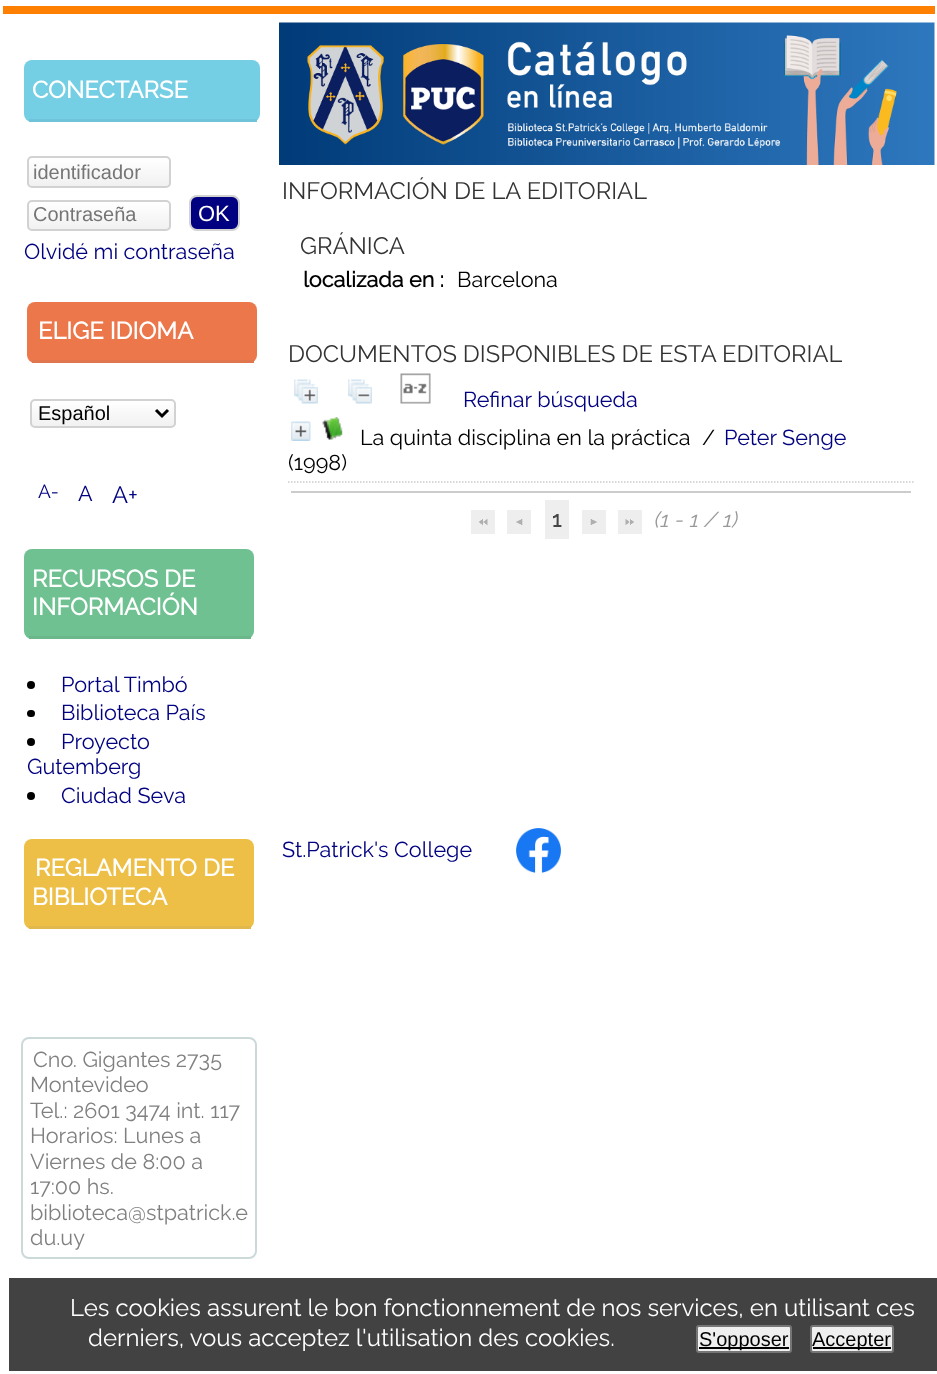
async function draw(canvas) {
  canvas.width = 937
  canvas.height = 1374
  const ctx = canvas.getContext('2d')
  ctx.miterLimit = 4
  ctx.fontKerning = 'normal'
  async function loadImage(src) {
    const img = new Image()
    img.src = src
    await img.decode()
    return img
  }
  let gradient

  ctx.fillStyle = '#fff'
  ctx.fillRect(0, 0, 937, 1374)
  ctx.fillStyle = '#ff8000'
  ctx.fillRect(3, 6, 932, 8)
  ctx.fillStyle = '#74cee4'
  ctx.beginPath()
  ctx.roundRect(24, 60, 236, 62, 8)
  ctx.fill()
  ctx.fillStyle = '#6fc4d9'
  ctx.fillRect(29, 119, 228, 3)
  ctx.font = 'bold 23.75px Raleway'
  ctx.fillStyle = '#fff'
  ctx.fillText('CONECTARSE', 32, 98)
  ctx.save()
  ctx.beginPath()
  ctx.roundRect(27, 156, 144, 32, 5)
  ctx.clip()
  gradient = ctx.createLinearGradient(99, 158, 99, 186)
  gradient.addColorStop(0.01, '#fff')
  gradient.addColorStop(1, '#f1f1f1')
  ctx.fillStyle = gradient
  ctx.fillRect(27, 158, 144, 28)
  ctx.restore()
  ctx.beginPath()
  ctx.roundRect(28, 157, 142, 30, 4)
  ctx.strokeStyle = '#d2d2d2'
  ctx.lineWidth = 2
  ctx.stroke()
  ctx.font = '20px Liberation Sans'
  ctx.fillStyle = '#757575'
  ctx.fillText('identificador', 33, 179)
  ctx.save()
  ctx.beginPath()
  ctx.roundRect(27, 200, 144, 31, 5)
  ctx.clip()
  gradient = ctx.createLinearGradient(99, 201, 99, 230)
  gradient.addColorStop(0.01, '#fff')
  gradient.addColorStop(1, '#f1f1f1')
  ctx.fillStyle = gradient
  ctx.fillRect(27, 201, 144, 29)
  ctx.restore()
  ctx.beginPath()
  ctx.roundRect(28, 201, 142, 29, 4)
  ctx.stroke()
  ctx.fillText('Contraseña', 33, 221)
  ctx.fillStyle = '#000080'
  ctx.beginPath()
  ctx.roundRect(190, 196, 49, 34, 7)
  ctx.fill()
  ctx.stroke()
  ctx.font = '22px Liberation Sans'
  ctx.fillStyle = '#fff'
  ctx.fillText('OK', 198, 221)
  ctx.font = '100 21.6px Raleway'
  ctx.fillStyle = '#000080'
  ctx.fillText('Olvidé mi contraseña', 24, 259)
  ctx.fillStyle = '#ec774b'
  ctx.beginPath()
  ctx.roundRect(27, 302, 230, 61, 8)
  ctx.fill()
  ctx.fillStyle = '#df764e'
  ctx.fillRect(32, 360, 222, 3)
  ctx.font = 'bold 23.75px Raleway'
  ctx.fillStyle = '#fff'
  ctx.fillText('ELIGE IDIOMA', 38, 339)
  ctx.save()
  ctx.beginPath()
  ctx.roundRect(30, 399, 146, 29, 5)
  ctx.clip()
  gradient = ctx.createLinearGradient(103, 401, 103, 426)
  gradient.addColorStop(0.01, '#fff')
  gradient.addColorStop(1, '#f1f1f1')
  ctx.fillStyle = gradient
  ctx.fillRect(30, 401, 146, 25)
  ctx.restore()
  ctx.beginPath()
  ctx.roundRect(31, 400, 144, 27, 4)
  ctx.stroke()
  ctx.beginPath()
  ctx.moveTo(156, 410)
  ctx.lineTo(162, 416)
  ctx.lineTo(168, 410)
  ctx.strokeStyle = '#000'
  ctx.lineWidth = 3
  ctx.stroke()
  ctx.font = '20px Liberation Sans'
  ctx.fillStyle = '#000'
  ctx.fillText('Español', 38, 420)
  ctx.font = '100 19px Raleway'
  ctx.fillStyle = '#000080'
  ctx.fillText('A-', 38, 498)
  ctx.font = '100 21.6px Raleway'
  ctx.fillText('A', 78, 501)
  ctx.font = '100 23.75px Raleway'
  ctx.fillText('A+', 112, 503)
  ctx.fillStyle = '#6fc191'
  ctx.beginPath()
  ctx.roundRect(24, 549, 230, 90, 8)
  ctx.fill()
  ctx.fillStyle = '#6ab78a'
  ctx.fillRect(29, 636, 222, 3)
  ctx.font = 'bold 23.75px Raleway'
  ctx.fillStyle = '#fff'
  ctx.fillText('RECURSOS DE', 32, 587)
  ctx.fillText('INFORMACIÓN', 32, 615)
  ctx.fillStyle = '#000'
  ctx.beginPath()
  ctx.arc(31, 685, 4, 0, 2 * Math.PI)
  ctx.fill()
  ctx.font = '100 21.6px Raleway'
  ctx.fillStyle = '#000080'
  ctx.fillText('Portal Timbó', 61, 692)
  ctx.fillStyle = '#000'
  ctx.beginPath()
  ctx.roundRect(27, 710, 8, 7, 3.5)
  ctx.fill()
  ctx.fillStyle = '#000080'
  ctx.fillText('Biblioteca País', 61, 720)
  ctx.fillStyle = '#000'
  ctx.beginPath()
  ctx.arc(31, 742, 4, 0, 2 * Math.PI)
  ctx.fill()
  ctx.fillStyle = '#000080'
  ctx.fillText('Proyecto', 61, 749)
  ctx.fillText('Gutemberg', 27, 774)
  ctx.fillStyle = '#000'
  ctx.beginPath()
  ctx.arc(31, 796, 4, 0, 2 * Math.PI)
  ctx.fill()
  ctx.fillStyle = '#000080'
  ctx.fillText('Ciudad Seva', 61, 803)
  ctx.fillStyle = '#edbf47'
  ctx.beginPath()
  ctx.roundRect(24, 839, 230, 90, 8)
  ctx.fill()
  ctx.fillStyle = '#e0b84e'
  ctx.fillRect(29, 926, 222, 3)
  ctx.font = 'bold 23.75px Raleway'
  ctx.fillStyle = '#fff'
  ctx.fillText('REGLAMENTO DE', 35, 876)
  ctx.fillText('BIBLIOTECA', 32, 905)
  ctx.beginPath()
  ctx.roundRect(22, 1038, 234, 220, 7)
  ctx.strokeStyle = '#ccd9d9'
  ctx.lineWidth = 2
  ctx.stroke()
  ctx.font = '100 21.6px Raleway'
  ctx.fillStyle = '#808080'
  ctx.fillText('Cno. Gigantes 2735', 33, 1067)
  ctx.fillText('Montevideo', 30, 1092)
  ctx.fillText('Tel.: 2601 3474 int. 117', 30, 1118)
  ctx.fillText('Horarios: Lunes a', 30, 1143)
  ctx.fillText('Viernes de 8:00 a', 30, 1169)
  ctx.fillText('17:00 hs.', 30, 1194)
  ctx.fillText('biblioteca@stpatrick.e', 30, 1220)
  ctx.fillText('du.uy', 30, 1245)
  ctx.drawImage(await loadImage('image0.png'), 279, 22, 656, 143)
  ctx.font = '100 23.75px Raleway'
  ctx.fillStyle = '#333'
  ctx.fillText('INFORMACIÓN DE LA EDITORIAL', 282, 199)
  ctx.fillText('GRÁNICA', 300, 254)
  ctx.font = 'bold 21.6px Raleway'
  ctx.fillStyle = '#000'
  ctx.fillText('localizada en :', 303, 287)
  ctx.font = '100 21.6px Raleway'
  ctx.fillText('Barcelona', 457, 287)
  ctx.font = '100 23.75px Raleway'
  ctx.fillStyle = '#333'
  ctx.fillText('DOCUMENTOS DISPONIBLES DE ESTA EDITORIAL', 288, 362)
  ctx.drawImage(await loadImage('image1.png'), 294, 379, 24, 25)
  ctx.drawImage(await loadImage('image2.png'), 348, 379, 24, 25)
  ctx.drawImage(await loadImage('image3.png'), 400, 373, 31, 31)
  ctx.font = '100 21.6px Raleway'
  ctx.fillStyle = '#000080'
  ctx.fillText('Refinar búsqueda', 463, 407)
  ctx.beginPath()
  ctx.moveTo(288, 482)
  ctx.lineTo(913.5, 482)
  ctx.strokeStyle = '#ccc'
  ctx.lineWidth = 1.5
  ctx.setLineDash([1.5, 1.5])
  ctx.stroke()
  ctx.drawImage(await loadImage('image4.png'), 291, 421, 20, 20)
  ctx.drawImage(await loadImage('image5.png'), 322, 417, 21, 23)
  ctx.fillStyle = '#000'
  ctx.fillText('La quinta disciplina en la práctica', 360, 445)
  ctx.fillText('/', 702, 445)
  ctx.fillStyle = '#000080'
  ctx.fillText('Peter Senge', 724, 445)
  ctx.fillStyle = '#000'
  ctx.fillText('(1998)', 288, 470)
  ctx.fillStyle = '#ccc'
  ctx.fillRect(291, 491, 620, 2)
  ctx.fillStyle = '#eee'
  ctx.fillRect(471, 510, 24, 24)
  ctx.drawImage(await loadImage('image6.png'), 478, 519, 10, 7)
  ctx.fillRect(507, 510, 24, 24)
  ctx.drawImage(await loadImage('image7.png'), 516, 519, 7, 6)
  ctx.fillRect(545, 500, 24, 39)
  ctx.font = 'bold 21.6px Raleway'
  ctx.fillStyle = '#444'
  ctx.fillText('1', 552, 527)
  ctx.fillStyle = '#eee'
  ctx.fillRect(582, 510, 24, 24)
  ctx.drawImage(await loadImage('image8.png'), 590, 519, 7, 6)
  ctx.fillRect(618, 510, 24, 24)
  ctx.drawImage(await loadImage('image9.png'), 625, 519, 9, 6)
  ctx.font = 'italic 100 21.6px Raleway'
  ctx.fillStyle = '#999'
  ctx.fillText('(1 - 1 / 1)', 653, 527)
  ctx.font = '100 21.6px Raleway'
  ctx.fillStyle = '#000080'
  ctx.fillText('St.Patrick\'s College', 282, 857)
  ctx.drawImage(await loadImage('image10.png'), 516, 828, 45, 45)
  ctx.fillStyle = '#424242'
  ctx.fillRect(9, 1278, 928, 93)
  ctx.font = '100 24px Raleway'
  ctx.fillStyle = '#fff'
  ctx.fillText('Les cookies assurent le bon fonctionnement de nos services, en utilisant ces', 70, 1316)
  ctx.fillText('derniers, vous acceptez l\'utilisation des cookies.', 88, 1346)
  ctx.fillStyle = '#efefef'
  ctx.beginPath()
  ctx.roundRect(697, 1326, 94, 26, 2)
  ctx.fill()
  ctx.strokeStyle = '#767676'
  ctx.lineWidth = 2
  ctx.setLineDash([])
  ctx.stroke()
  ctx.fillStyle = '#000'
  ctx.fillRect(699, 1347, 90, 2)
  ctx.font = '20px Liberation Sans'
  ctx.fillText('S\'opposer', 699, 1346)
  ctx.fillStyle = '#efefef'
  ctx.beginPath()
  ctx.roundRect(811, 1326, 82, 26, 2)
  ctx.fill()
  ctx.stroke()
  ctx.fillStyle = '#000'
  ctx.fillRect(813, 1347, 78, 2)
  ctx.fillText('Accepter', 812, 1346)
}

draw(document.querySelector('canvas'))
